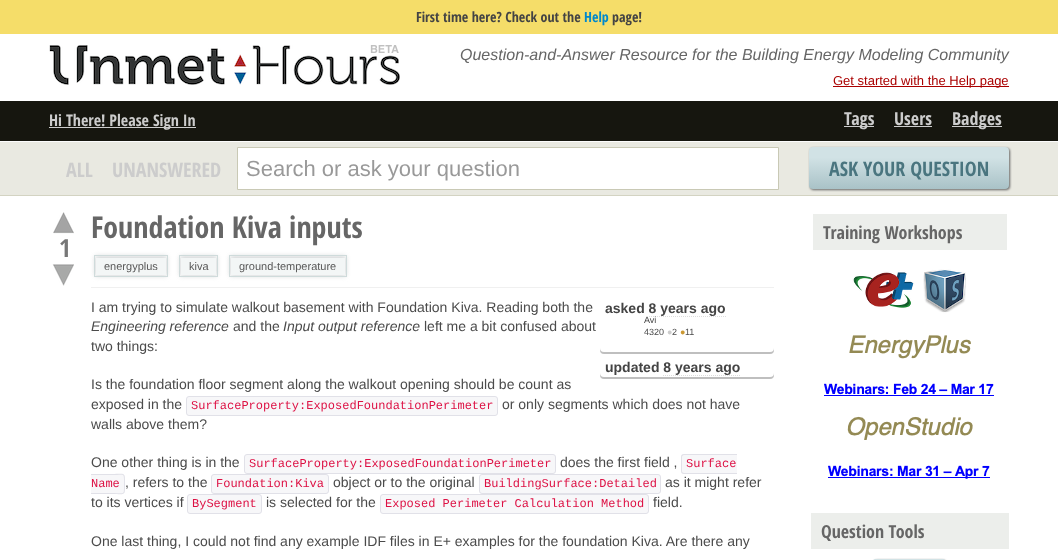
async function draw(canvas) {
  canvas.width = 1058
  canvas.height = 560
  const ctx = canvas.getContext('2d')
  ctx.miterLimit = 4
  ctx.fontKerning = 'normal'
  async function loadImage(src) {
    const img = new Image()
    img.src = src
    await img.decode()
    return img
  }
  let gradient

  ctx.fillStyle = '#fff'
  ctx.fillRect(0, 0, 1058, 560)
  ctx.fillStyle = '#f5dd69'
  ctx.fillRect(0, 0, 1058, 34)
  ctx.font = 'bold 14px Open Sans Condensed'
  ctx.fillStyle = '#444'
  ctx.fillText('First time here? Check out the', 416, 22)
  ctx.fillStyle = '#08c'
  ctx.fillText('Help', 584, 22)
  ctx.fillStyle = '#444'
  ctx.fillText('page!', 612, 22)
  ctx.drawImage(await loadImage('image0.png'), 49, 45, 351, 40)
  ctx.font = 'italic 16px Liberation Sans'
  ctx.fillStyle = '#666'
  ctx.fillText('Question-and-Answer Resource for the Building Energy Modeling Community', 460, 60)
  ctx.fillStyle = '#a00'
  ctx.fillRect(833, 86, 176, 1)
  ctx.font = '13px Liberation Sans'
  ctx.fillText('Get started with the Help page', 833, 85)
  ctx.fillStyle = '#16160f'
  ctx.fillRect(0, 101, 1058, 40)
  ctx.fillStyle = '#ccc'
  ctx.fillRect(49, 127, 147, 1)
  ctx.font = 'bold 16px Open Sans Condensed'
  ctx.fillText('Hi There! Please Sign In', 49, 126)
  ctx.fillRect(844, 126, 30, 1)
  ctx.font = 'bold 18px Open Sans Condensed'
  ctx.fillText('Tags', 844, 125)
  ctx.fillText('Users', 894, 125)
  ctx.fillRect(894, 126, 38, 1)
  ctx.fillRect(952, 126, 50, 1)
  ctx.fillText('Badges', 952, 125)
  ctx.fillStyle = '#e9e9e1'
  ctx.fillRect(0, 142, 1058, 53)
  ctx.fillStyle = '#fcfcfc'
  ctx.fillRect(0, 141, 1058, 1)
  ctx.fillStyle = '#d3d3c2'
  ctx.fillRect(0, 195, 1058, 1)
  ctx.font = 'bold 20px Open Sans Condensed'
  ctx.fillStyle = '#ccc'
  ctx.fillText('ALL', 66, 177)
  ctx.fillText('UNANSWERED', 112, 177)
  ctx.fillStyle = '#fff'
  ctx.beginPath()
  ctx.rect(237.5, 147.5, 541, 42)
  ctx.fill()
  ctx.strokeStyle = '#c9c9b5'
  ctx.stroke()
  ctx.font = '22px Liberation Sans'
  ctx.fillStyle = '#999'
  ctx.fillText('Search or ask your question', 246, 176)
  ctx.fillStyle = '#636363'
  ctx.filter = 'blur(1px)'
  ctx.beginPath()
  ctx.roundRect(810, 148, 200, 42, 4)
  ctx.fill()
  ctx.filter = 'none'
  gradient = ctx.createLinearGradient(909, 147, 909, 189)
  gradient.addColorStop(0, '#d1e2e5')
  gradient.addColorStop(0.25, '#d1e2e5')
  gradient.addColorStop(1, '#a9c2c7')
  ctx.fillStyle = gradient
  ctx.beginPath()
  ctx.roundRect(809, 147, 200, 42, 4)
  ctx.fill()
  ctx.font = 'bold 20px Open Sans Condensed'
  ctx.fillStyle = '#4a757f'
  ctx.fillText('ASK YOUR QUESTION', 829, 176)
  ctx.drawImage(await loadImage('image1.png'), 53, 212, 21, 22)
  ctx.font = 'bold 25px Open Sans Condensed'
  ctx.fillStyle = '#777'
  ctx.fillText('1', 59, 257)
  ctx.drawImage(await loadImage('image2.png'), 52, 264, 22, 22)
  ctx.font = 'bold 30px Open Sans Condensed'
  ctx.fillStyle = '#666'
  ctx.fillText('Foundation Kiva inputs', 91, 238)
  ctx.fillStyle = '#d3d6d7'
  ctx.filter = 'blur(2.5px)'
  ctx.beginPath()
  ctx.rect(95, 256, 72, 20)
  ctx.fill()
  ctx.filter = 'none'
  ctx.fillStyle = '#f3f6f6'
  ctx.fillRect(96, 258, 70, 17)
  ctx.strokeStyle = '#cfdbdb'
  ctx.strokeRect(94.5, 255.5, 73, 21)
  ctx.font = '11px Liberation Sans'
  ctx.fillStyle = '#585858'
  ctx.fillText('energyplus', 104, 270)
  ctx.fillStyle = '#d3d6d7'
  ctx.filter = 'blur(2.5px)'
  ctx.beginPath()
  ctx.rect(180, 256, 37, 20)
  ctx.fill()
  ctx.filter = 'none'
  ctx.fillStyle = '#f3f6f6'
  ctx.fillRect(181, 258, 35, 17)
  ctx.strokeRect(179.5, 255.5, 38, 21)
  ctx.fillStyle = '#585858'
  ctx.fillText('kiva', 189, 270)
  ctx.fillStyle = '#d3d6d7'
  ctx.filter = 'blur(2.5px)'
  ctx.beginPath()
  ctx.rect(230, 256, 116, 20)
  ctx.fill()
  ctx.filter = 'none'
  ctx.fillStyle = '#f3f6f6'
  ctx.fillRect(231, 258, 114, 17)
  ctx.strokeRect(229.5, 255.5, 117, 21)
  ctx.fillStyle = '#585858'
  ctx.fillText('ground-temperature', 239, 270)
  ctx.fillStyle = '#f0f0f0'
  ctx.fillRect(91, 287, 683, 1)
  ctx.font = '14px Liberation Sans'
  ctx.fillStyle = '#4b4b4b'
  ctx.fillText('I am trying to simulate walkout basement with Foundation Kiva. Reading both the', 91, 312)
  ctx.font = 'italic 14px Liberation Sans'
  ctx.fillText('Engineering reference', 91, 331)
  ctx.font = '14px Liberation Sans'
  ctx.fillText('and the', 233, 331)
  ctx.font = 'italic 14px Liberation Sans'
  ctx.fillText('Input output reference', 283, 331)
  ctx.font = '14px Liberation Sans'
  ctx.fillText('left me a bit confused about', 424, 331)
  ctx.fillText('two things:', 91, 351)
  ctx.fillText('Is the foundation floor segment along the walkout opening should be count as', 91, 389)
  ctx.fillText('exposed in the', 91, 409)
  ctx.fillStyle = '#f7f7f9'
  ctx.beginPath()
  ctx.roundRect(186.5, 396.5, 311, 19, 2.5)
  ctx.fill()
  ctx.strokeStyle = '#e1e1e8'
  ctx.stroke()
  ctx.font = '12px Liberation Mono'
  ctx.fillStyle = '#d14'
  ctx.fillText('SurfaceProperty:ExposedFoundationPerimeter', 191, 409)
  ctx.font = '14px Liberation Sans'
  ctx.fillStyle = '#4b4b4b'
  ctx.fillText('or only segments which does not have', 502, 409)
  ctx.fillText('walls above them?', 91, 429)
  ctx.fillText('One other thing is in the', 91, 467)
  ctx.fillStyle = '#f7f7f9'
  ctx.beginPath()
  ctx.roundRect(244.5, 454.5, 311, 19, 2.5)
  ctx.fill()
  ctx.stroke()
  ctx.font = '12px Liberation Mono'
  ctx.fillStyle = '#d14'
  ctx.fillText('SurfaceProperty:ExposedFoundationPerimeter', 249, 467)
  ctx.font = '14px Liberation Sans'
  ctx.fillStyle = '#4b4b4b'
  ctx.fillText('does the first field ,', 560, 467)
  ctx.fillStyle = '#f7f7f9'
  ctx.beginPath()
  ctx.roundRect(681, 454, 56, 20, [3, 0, 0, 3])
  ctx.fill()
  ctx.fillStyle = '#e1e1e8'
  ctx.beginPath()
  ctx.moveTo(684, 454)
  ctx.lineTo(737, 454)
  ctx.lineTo(737, 474)
  ctx.lineTo(684, 474)
  ctx.bezierCurveTo(682, 474, 681, 473, 681, 471)
  ctx.lineTo(681, 457)
  ctx.bezierCurveTo(681, 455, 682, 454, 684, 454)
  ctx.closePath()
  ctx.moveTo(684, 455)
  ctx.lineTo(737, 455)
  ctx.lineTo(737, 473)
  ctx.lineTo(684, 473)
  ctx.bezierCurveTo(683, 473, 682, 472, 682, 471)
  ctx.lineTo(682, 457)
  ctx.bezierCurveTo(682, 456, 683, 455, 684, 455)
  ctx.closePath()
  ctx.fill('evenodd')
  ctx.font = '12px Liberation Mono'
  ctx.fillStyle = '#d14'
  ctx.fillText('Surface', 686, 467)
  ctx.fillStyle = '#f7f7f9'
  ctx.beginPath()
  ctx.roundRect(91, 474, 34, 20, [0, 3, 3, 0])
  ctx.fill()
  ctx.fillStyle = '#e1e1e8'
  ctx.beginPath()
  ctx.moveTo(91, 474)
  ctx.lineTo(111.5, 474)
  ctx.bezierCurveTo(125.5, 474, 125, 471.5, 125, 484)
  ctx.bezierCurveTo(125, 496.5, 125.5, 494, 111.5, 494)
  ctx.lineTo(91, 494)
  ctx.closePath()
  ctx.moveTo(91, 475)
  ctx.lineTo(111.5, 475)
  ctx.bezierCurveTo(125, 475, 124, 472, 124, 484)
  ctx.bezierCurveTo(124, 496, 125, 493, 111.5, 493)
  ctx.lineTo(91, 493)
  ctx.closePath()
  ctx.fill('evenodd')
  ctx.fillStyle = '#d14'
  ctx.fillText('Name', 91, 487)
  ctx.font = '14px Liberation Sans'
  ctx.fillStyle = '#4b4b4b'
  ctx.fillText(', refers to the', 125, 487)
  ctx.fillStyle = '#f7f7f9'
  ctx.beginPath()
  ctx.roundRect(211.5, 474.5, 117, 19, 2.5)
  ctx.fill()
  ctx.stroke()
  ctx.font = '12px Liberation Mono'
  ctx.fillStyle = '#d14'
  ctx.fillText('Foundation:Kiva', 216, 487)
  ctx.font = '14px Liberation Sans'
  ctx.fillStyle = '#4b4b4b'
  ctx.fillText('object or to the original', 333, 487)
  ctx.fillStyle = '#f7f7f9'
  ctx.beginPath()
  ctx.roundRect(479.5, 474.5, 181, 19, 2.5)
  ctx.fill()
  ctx.stroke()
  ctx.font = '12px Liberation Mono'
  ctx.fillStyle = '#d14'
  ctx.fillText('BuildingSurface:Detailed', 484, 487)
  ctx.font = '14px Liberation Sans'
  ctx.fillStyle = '#4b4b4b'
  ctx.fillText('as it might refer', 665, 487)
  ctx.fillText('to its vertices if', 91, 507)
  ctx.fillStyle = '#f7f7f9'
  ctx.beginPath()
  ctx.roundRect(187.5, 494.5, 74, 19, 2.5)
  ctx.fill()
  ctx.stroke()
  ctx.font = '12px Liberation Mono'
  ctx.fillStyle = '#d14'
  ctx.fillText('BySegment', 192, 507)
  ctx.font = '14px Liberation Sans'
  ctx.fillStyle = '#4b4b4b'
  ctx.fillText('is selected for the', 266, 507)
  ctx.fillStyle = '#f7f7f9'
  ctx.beginPath()
  ctx.roundRect(380.5, 494.5, 268, 19, 2.5)
  ctx.fill()
  ctx.stroke()
  ctx.font = '12px Liberation Mono'
  ctx.fillStyle = '#d14'
  ctx.fillText('Exposed Perimeter Calculation Method', 385, 507)
  ctx.font = '14px Liberation Sans'
  ctx.fillStyle = '#4b4b4b'
  ctx.fillText('field.', 653, 507)
  ctx.fillText('One last thing, I could not find any example IDF files in E+ examples for the foundation Kiva. Are there any', 91, 546)
  ctx.fillStyle = '#bfbfbf'
  ctx.filter = 'blur(0.5px)'
  ctx.beginPath()
  ctx.roundRect(600, 300, 174, 54, 4)
  ctx.fill()
  ctx.filter = 'none'
  ctx.fillStyle = '#fff'
  ctx.beginPath()
  ctx.roundRect(600, 298, 174, 54, 4)
  ctx.fill()
  ctx.font = 'bold 14px Liberation Sans'
  ctx.fillStyle = '#444'
  ctx.fillText('asked 8 years ago', 605, 313)
  ctx.beginPath()
  ctx.moveTo(649, 316.5)
  ctx.lineTo(726, 316.5)
  ctx.strokeStyle = '#ddd'
  ctx.setLineDash([1, 1])
  ctx.stroke()
  ctx.font = '9px Liberation Sans'
  ctx.fillText('Avi', 644, 323)
  ctx.fillStyle = '#4b4b4b'
  ctx.fillText('4320', 644, 335)
  ctx.fillStyle = '#ccc'
  ctx.fillText('●', 667, 335)
  ctx.fillStyle = '#4b4b4b'
  ctx.fillText('2', 672, 335)
  ctx.fillStyle = '#c93'
  ctx.fillText('●', 680, 335)
  ctx.fillStyle = '#4b4b4b'
  ctx.fillText('11', 685, 335)
  ctx.fillStyle = '#bfbfbf'
  ctx.filter = 'blur(0.5px)'
  ctx.beginPath()
  ctx.roundRect(600, 359, 174, 20, 4)
  ctx.fill()
  ctx.filter = 'none'
  ctx.fillStyle = '#fff'
  ctx.beginPath()
  ctx.roundRect(600, 357, 174, 20, 4)
  ctx.fill()
  ctx.font = 'bold 14px Liberation Sans'
  ctx.fillStyle = '#444'
  ctx.fillText('updated 8 years ago', 605, 372)
  ctx.beginPath()
  ctx.moveTo(663, 375.5)
  ctx.lineTo(740, 375.5)
  ctx.stroke()
  ctx.fillStyle = '#eceeeb'
  ctx.fillRect(813, 214, 194, 36)
  ctx.font = 'bold 18px Open Sans Condensed'
  ctx.fillStyle = '#666'
  ctx.fillText('Training Workshops', 823, 239)
  ctx.drawImage(await loadImage('image3.png'), 824, 269, 170, 210)
  ctx.fillStyle = '#eceeeb'
  ctx.fillRect(811, 513, 198, 36)
  ctx.fillStyle = '#666'
  ctx.fillText('Question Tools', 821, 538)
  ctx.fillStyle = '#636363'
  ctx.filter = 'blur(1px)'
  ctx.beginPath()
  ctx.roundRect(874, 560, 72, 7, 4)
  ctx.fill()
  ctx.filter = 'none'
  gradient = ctx.createLinearGradient(909, 559, 909, 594)
  gradient.addColorStop(0, '#d1e2e5')
  gradient.addColorStop(0.25, '#d1e2e5')
  gradient.addColorStop(1, '#a9c2c7')
  ctx.fillStyle = gradient
  ctx.beginPath()
  ctx.roundRect(873, 559, 72, 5, 4)
  ctx.fill()
}

draw(document.querySelector('canvas'))
